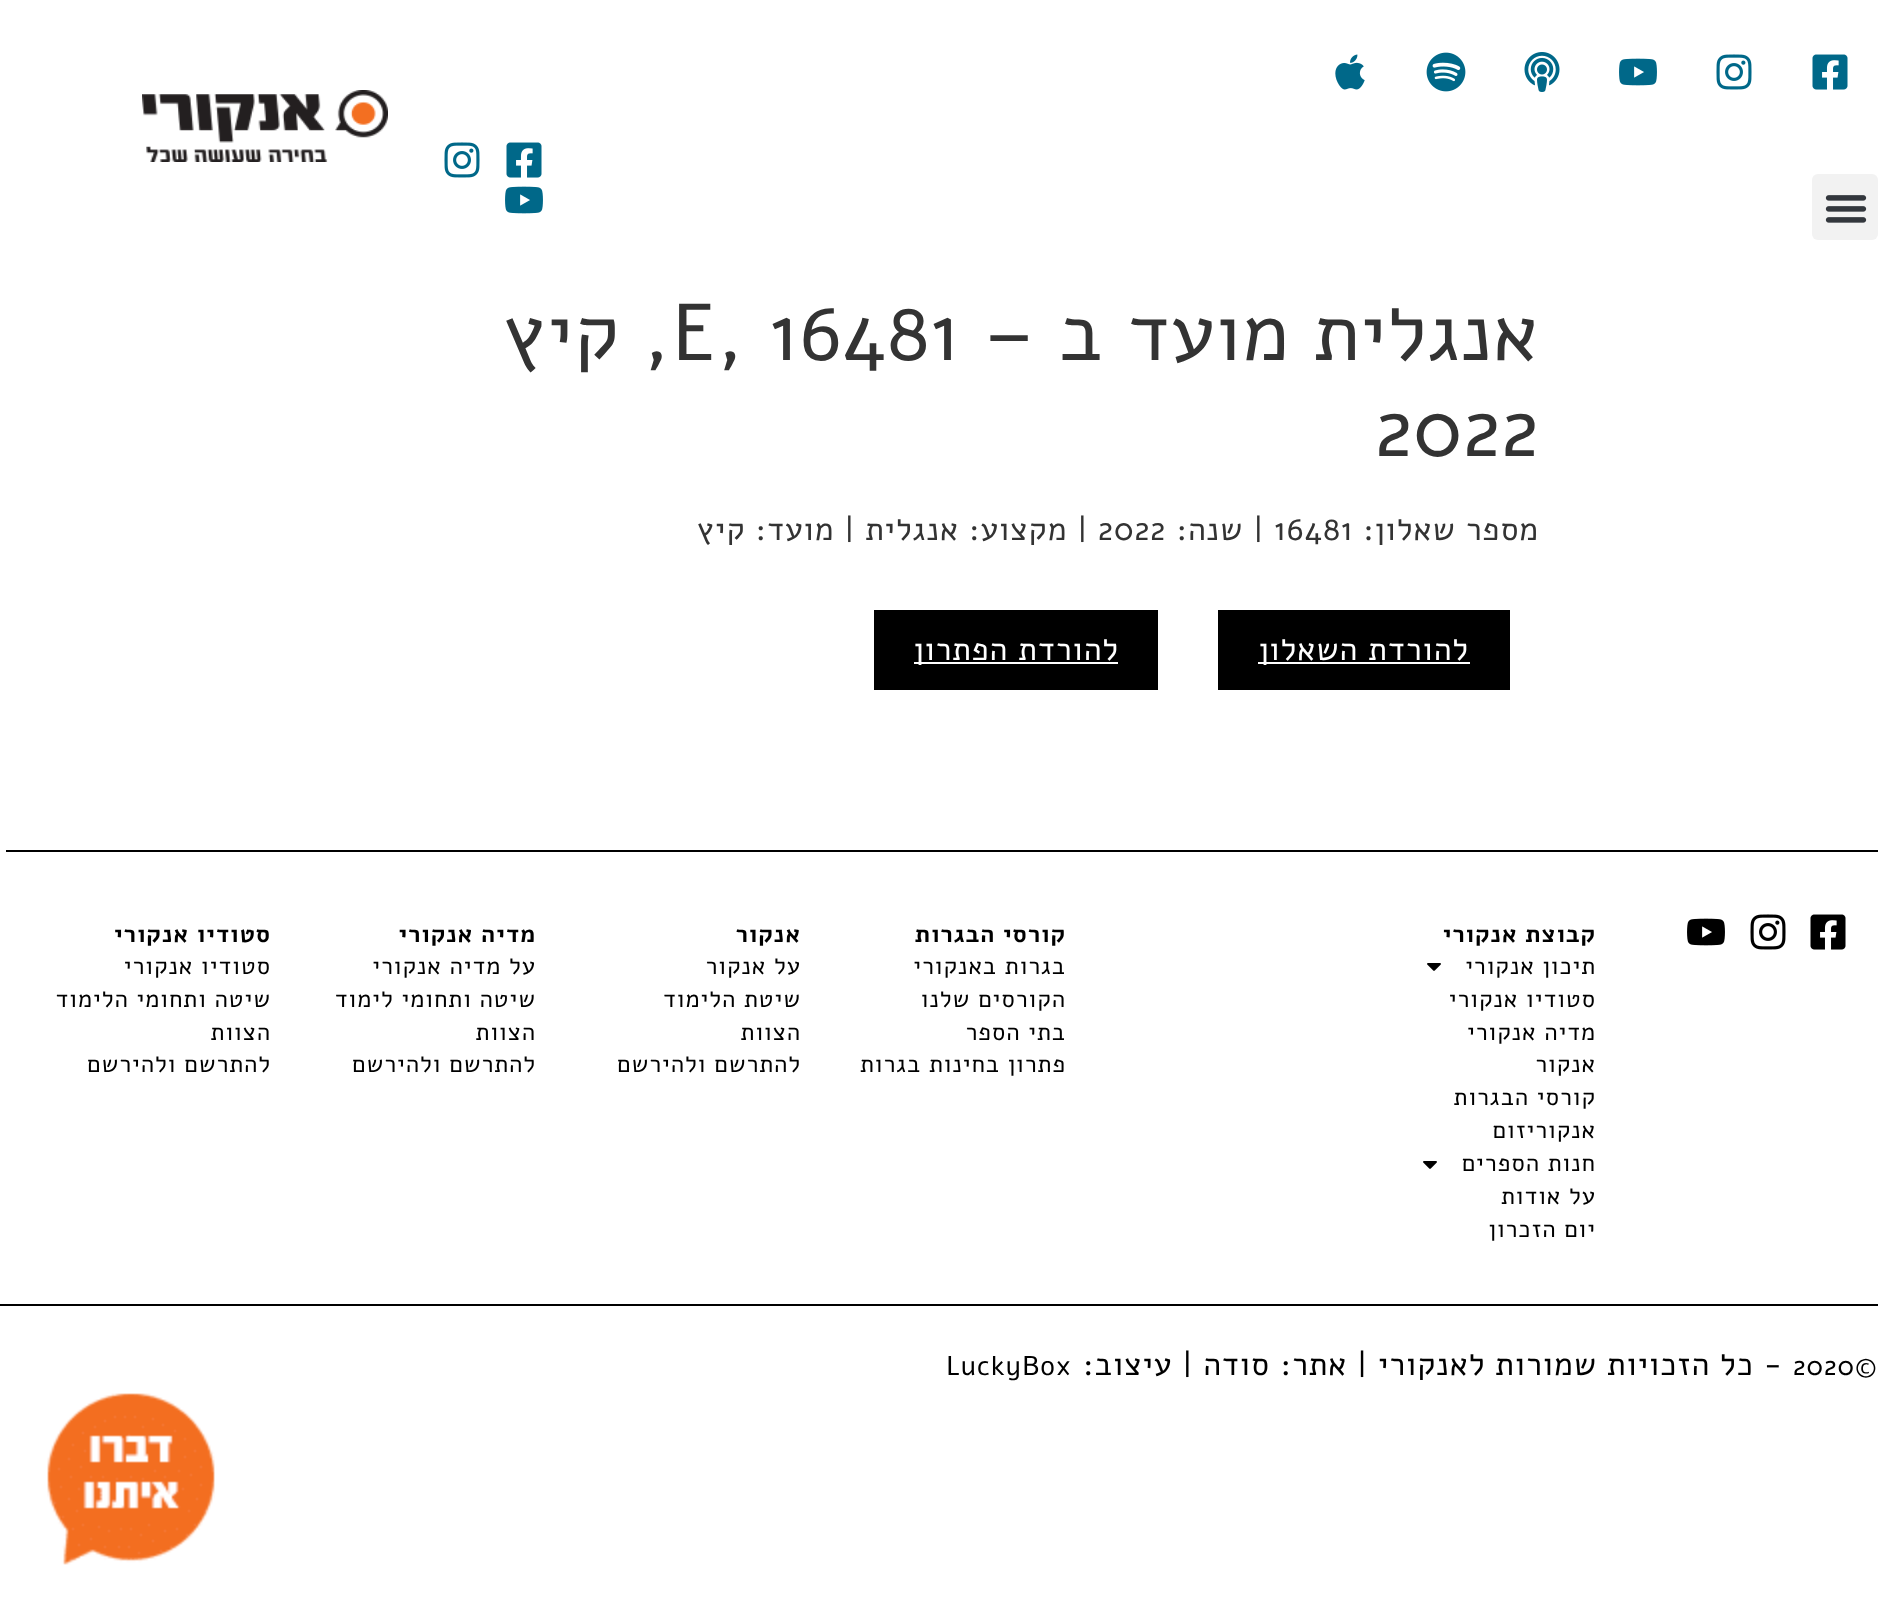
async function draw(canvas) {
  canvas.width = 1878
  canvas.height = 1609
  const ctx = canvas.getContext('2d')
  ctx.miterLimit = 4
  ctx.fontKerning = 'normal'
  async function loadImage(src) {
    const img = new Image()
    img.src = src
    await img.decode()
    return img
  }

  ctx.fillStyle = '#fff'
  ctx.fillRect(0, 0, 1878, 1609)
  ctx.drawImage(await loadImage('image0.png'), 1812, 54, 36, 36)
  ctx.drawImage(await loadImage('image1.png'), 1716, 54, 36, 36)
  ctx.drawImage(await loadImage('image2.png'), 1619, 58, 38, 28)
  ctx.drawImage(await loadImage('image3.png'), 1524, 52, 36, 40)
  ctx.drawImage(await loadImage('image4.png'), 1426, 52, 40, 40)
  ctx.drawImage(await loadImage('image5.png'), 1335, 54, 30, 36)
  ctx.drawImage(await loadImage('image6.png'), 142, 90, 246, 72)
  ctx.fillStyle = '#f2f2f2'
  ctx.beginPath()
  ctx.roundRect(1812, 174, 66, 66, 6)
  ctx.fill()
  ctx.drawImage(await loadImage('image7.png'), 1825, 195, 42, 28)
  ctx.drawImage(await loadImage('image0.png'), 506, 142, 36, 36)
  ctx.drawImage(await loadImage('image1.png'), 444, 142, 36, 36)
  ctx.drawImage(await loadImage('image2.png'), 505, 186, 38, 28)
  ctx.letterSpacing = '1px'
  ctx.direction = 'rtl'
  ctx.font = '80px Alef'
  ctx.fillStyle = '#333'
  ctx.fillText('אנגלית מועד ב –', 1539, 360)
  ctx.direction = 'ltr'
  ctx.fillText('E, 16481', 672, 360)
  ctx.direction = 'rtl'
  ctx.fillText(', קיץ', 672, 360)
  ctx.direction = 'ltr'
  ctx.fillText('2022', 1375, 456)
  ctx.direction = 'rtl'
  ctx.font = '32px Alef'
  ctx.fillText('מספר שאלון:', 1539, 540)
  ctx.direction = 'ltr'
  ctx.fillText('16481', 1274, 540)
  ctx.direction = 'rtl'
  ctx.fillText('| שנה:', 1264, 540)
  ctx.direction = 'ltr'
  ctx.fillText('2022', 1098, 540)
  ctx.direction = 'rtl'
  ctx.fillText('| מקצוע: אנגלית | מועד: קיץ', 1088, 540)
  ctx.fillStyle = '#000'
  ctx.fillRect(1218, 610, 292, 80)
  ctx.fillStyle = '#fff'
  ctx.fillRect(1258, 662, 212, 2)
  ctx.fillText('להורדת השאלון', 1469, 660)
  ctx.fillStyle = '#000'
  ctx.fillRect(874, 610, 284, 80)
  ctx.fillStyle = '#fff'
  ctx.fillRect(914, 662, 204, 2)
  ctx.fillText('להורדת הפתרון', 1119, 660)
  ctx.fillStyle = '#000'
  ctx.fillRect(6, 850, 1872, 2)
  ctx.drawImage(await loadImage('image8.png'), 1810, 914, 36, 36)
  ctx.drawImage(await loadImage('image9.png'), 1750, 914, 36, 36)
  ctx.drawImage(await loadImage('image10.png'), 1687, 918, 38, 28)
  ctx.drawImage(await loadImage('image11.png'), 47, 1393, 168, 172)
  ctx.font = 'bold 24px Alef'
  ctx.fillText('קבוצת אנקורי', 1596, 942)
  ctx.font = '24px Alef'
  ctx.fillText('תיכון אנקורי', 1596, 974)
  ctx.drawImage(await loadImage('image12.png'), 1427, 963, 14, 8)
  ctx.fillText('סטודיו אנקורי', 1596, 1007)
  ctx.fillText('מדיה אנקורי', 1596, 1040)
  ctx.fillText('אנקור', 1596, 1072)
  ctx.fillText('קורסי הבגרות', 1596, 1105)
  ctx.fillText('אנקוריזום', 1596, 1138)
  ctx.fillText('חנות הספרים', 1596, 1171)
  ctx.drawImage(await loadImage('image12.png'), 1423, 1161, 14, 8)
  ctx.fillText('על אודות', 1596, 1204)
  ctx.fillText('יום הזכרון', 1596, 1237)
  ctx.font = 'bold 24px Alef'
  ctx.fillText('קורסי הבגרות', 1066, 942)
  ctx.font = '24px Alef'
  ctx.fillText('בגרות באנקורי', 1066, 974)
  ctx.fillText('הקורסים שלנו', 1066, 1007)
  ctx.fillText('בתי הספר', 1066, 1040)
  ctx.fillText('פתרון בחינות בגרות', 1066, 1072)
  ctx.font = 'bold 24px Alef'
  ctx.fillText('אנקור', 801, 942)
  ctx.font = '24px Alef'
  ctx.fillText('על אנקור', 801, 974)
  ctx.fillText('שיטת הלימוד', 801, 1007)
  ctx.fillText('הצוות', 801, 1040)
  ctx.fillText('להתרשם ולהירשם', 801, 1072)
  ctx.font = 'bold 24px Alef'
  ctx.fillText('מדיה אנקורי', 536, 942)
  ctx.font = '24px Alef'
  ctx.fillText('על מדיה אנקורי', 536, 974)
  ctx.fillText('שיטה ותחומי לימוד', 536, 1007)
  ctx.fillText('הצוות', 536, 1040)
  ctx.fillText('להתרשם ולהירשם', 536, 1072)
  ctx.font = 'bold 24px Alef'
  ctx.fillText('סטודיו אנקורי', 271, 942)
  ctx.font = '24px Alef'
  ctx.fillText('סטודיו אנקורי', 271, 974)
  ctx.fillText('שיטה ותחומי הלימוד', 271, 1007)
  ctx.fillText('הצוות', 271, 1040)
  ctx.fillText('להתרשם ולהירשם', 271, 1072)
  ctx.fillRect(0, 1304, 1878, 2)
  ctx.direction = 'ltr'
  ctx.font = '27px Alef'
  ctx.fillText('2020©', 1793, 1375)
  ctx.direction = 'rtl'
  ctx.font = '32px Alef'
  ctx.fillText('- כל הזכויות שמורות לאנקורי | אתר:', 1783, 1375)
  ctx.fillText('סודה', 1270, 1375)
  ctx.fillText('| עיצוב:', 1193, 1375)
  ctx.direction = 'ltr'
  ctx.font = '27px Alef'
  ctx.fillText('LuckyBox', 946, 1375)
}

draw(document.querySelector('canvas'))
